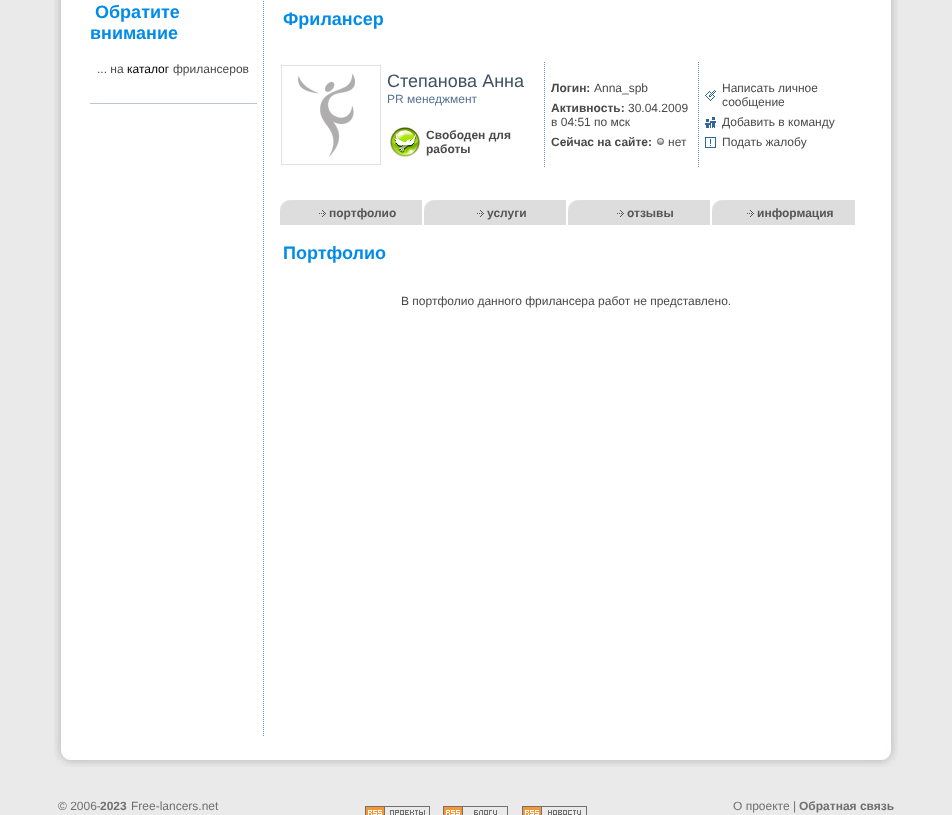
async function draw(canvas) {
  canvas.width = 952
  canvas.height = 815
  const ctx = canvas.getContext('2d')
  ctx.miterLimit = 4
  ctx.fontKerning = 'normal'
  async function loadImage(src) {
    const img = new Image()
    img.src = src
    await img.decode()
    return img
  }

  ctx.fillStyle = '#eaeaea'
  ctx.fillRect(0, 0, 952, 815)
  ctx.drawImage(await loadImage('image0.png'), 54, 0, 29, 737)
  ctx.fillStyle = '#fff'
  ctx.fillRect(83, 0, 786, 737)
  ctx.drawImage(await loadImage('image1.png'), 263, 1, 1, 735)
  ctx.font = 'bold 18px Liberation Sans'
  ctx.fillStyle = '#038ce7'
  ctx.fillText('Обратите', 95, 18)
  ctx.fillText('внимание', 90, 39)
  ctx.font = '12px Liberation Sans'
  ctx.fillStyle = '#494949'
  ctx.fillText('... на', 97, 73)
  ctx.fillStyle = '#000'
  ctx.fillText('каталог', 127, 73)
  ctx.fillStyle = '#494949'
  ctx.fillText('фрилансеров', 173, 73)
  ctx.drawImage(await loadImage('image2.png'), 90, 103, 167, 1)
  ctx.font = 'bold 18px Liberation Sans'
  ctx.fillStyle = '#038ce7'
  ctx.fillText('Фрилансер', 283, 25)
  ctx.drawImage(await loadImage('image3.png'), 281, 65, 100, 100)
  ctx.drawImage(await loadImage('image4.png'), 544, 62, 1, 105)
  ctx.font = '18px Liberation Sans'
  ctx.fillStyle = '#405264'
  ctx.fillText('Степанова Анна', 387, 87)
  ctx.font = '12px Liberation Sans'
  ctx.fillStyle = '#547392'
  ctx.fillText('PR менеджмент', 387, 103)
  ctx.drawImage(await loadImage('image5.png'), 390, 127, 30, 30)
  ctx.font = 'bold 12px Liberation Sans'
  ctx.fillStyle = '#494949'
  ctx.fillText('Свободен для', 426, 139)
  ctx.fillText('работы', 426, 153)
  ctx.drawImage(await loadImage('image4.png'), 698, 62, 1, 105)
  ctx.fillText('Логин:', 551, 92)
  ctx.font = '12px Liberation Sans'
  ctx.fillText('Anna_spb', 594, 92)
  ctx.font = 'bold 12px Liberation Sans'
  ctx.fillText('Активность:', 551, 112)
  ctx.font = '12px Liberation Sans'
  ctx.fillText('30.04.2009', 628, 112)
  ctx.fillText('в 04:51 по мск', 551, 126)
  ctx.font = 'bold 12px Liberation Sans'
  ctx.fillText('Сейчас на сайте:', 551, 146)
  ctx.drawImage(await loadImage('image6.png'), 657, 138, 7, 7)
  ctx.font = '12px Liberation Sans'
  ctx.fillText('нет', 668, 146)
  ctx.drawImage(await loadImage('image7.png'), 705, 90, 11, 11)
  ctx.fillText('Написать личное', 722, 92)
  ctx.fillText('сообщение', 722, 106)
  ctx.drawImage(await loadImage('image8.png'), 705, 117, 11, 11)
  ctx.fillText('Добавить в команду', 722, 126)
  ctx.drawImage(await loadImage('image9.png'), 705, 137, 11, 11)
  ctx.fillText('Подать жалобу', 722, 146)
  ctx.drawImage(await loadImage('image10.png'), 280, 200, 13, 25)
  ctx.fillStyle = '#ddd'
  ctx.fillRect(293, 200, 129, 25)
  ctx.drawImage(await loadImage('image11.png'), 319, 210, 7, 7)
  ctx.font = 'bold 12px Liberation Sans'
  ctx.fillStyle = '#575555'
  ctx.fillText('портфолио', 329, 217)
  ctx.drawImage(await loadImage('image10.png'), 424, 200, 13, 25)
  ctx.fillStyle = '#ddd'
  ctx.fillRect(437, 200, 129, 25)
  ctx.drawImage(await loadImage('image11.png'), 477, 210, 7, 7)
  ctx.fillStyle = '#575555'
  ctx.fillText('услуги', 487, 217)
  ctx.drawImage(await loadImage('image10.png'), 568, 200, 13, 25)
  ctx.fillStyle = '#ddd'
  ctx.fillRect(581, 200, 129, 25)
  ctx.drawImage(await loadImage('image11.png'), 617, 210, 7, 7)
  ctx.fillStyle = '#575555'
  ctx.fillText('отзывы', 627, 217)
  ctx.drawImage(await loadImage('image10.png'), 712, 200, 13, 25)
  ctx.fillStyle = '#ddd'
  ctx.fillRect(725, 200, 130, 25)
  ctx.drawImage(await loadImage('image11.png'), 747, 210, 7, 7)
  ctx.fillStyle = '#575555'
  ctx.fillText('информация', 757, 217)
  ctx.font = 'bold 18px Liberation Sans'
  ctx.fillStyle = '#038ce7'
  ctx.fillText('Портфолио', 283, 259)
  ctx.font = '12px Liberation Sans'
  ctx.fillStyle = '#494949'
  ctx.fillText('В портфолио данного фрилансера работ не представлено.', 401, 305)
  ctx.drawImage(await loadImage('image12.png'), 869, 0, 29, 737)
  ctx.drawImage(await loadImage('image13.png'), 54, 737, 29, 30)
  ctx.drawImage(await loadImage('image14.png'), 83, 737, 786, 30)
  ctx.drawImage(await loadImage('image15.png'), 869, 737, 29, 30)
  ctx.fillStyle = '#6f6f6f'
  ctx.fillText('© 2006-', 58, 810)
  ctx.font = 'bold 12px Liberation Sans'
  ctx.fillText('2023', 100, 810)
  ctx.font = '12px Liberation Sans'
  ctx.fillText('Free-lancers.net', 131, 810)
  ctx.drawImage(await loadImage('image16.png'), 365, 806, 65, 9)
  ctx.drawImage(await loadImage('image17.png'), 443, 806, 65, 9)
  ctx.drawImage(await loadImage('image18.png'), 522, 806, 65, 9)
  ctx.fillText('О проекте |', 733, 810)
  ctx.font = 'bold 12px Liberation Sans'
  ctx.fillText('Обратная связь', 799, 810)
}

draw(document.querySelector('canvas'))
